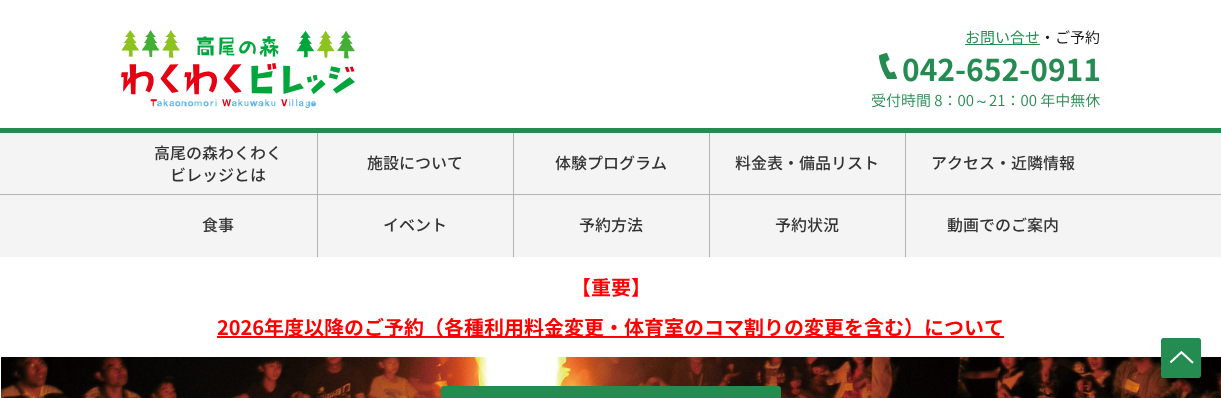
async function draw(canvas) {
  canvas.width = 1221
  canvas.height = 398
  const ctx = canvas.getContext('2d')
  ctx.miterLimit = 4
  ctx.fontKerning = 'normal'
  async function loadImage(src) {
    const img = new Image()
    img.src = src
    await img.decode()
    return img
  }

  ctx.fillStyle = '#fff'
  ctx.fillRect(0, 0, 1221, 398)
  ctx.drawImage(await loadImage('image0.png'), 121, 30, 234, 78)
  ctx.fillStyle = '#248c51'
  ctx.fillRect(965, 44, 75, 1)
  ctx.font = '15px Noto Sans JP'
  ctx.fillText('お問い合せ', 965, 43)
  ctx.fillStyle = '#1a1a1a'
  ctx.fillText('・ご予約', 1040, 43)
  ctx.drawImage(await loadImage('image1.png'), 879, 53, 18, 26)
  ctx.font = 'bold 30px Noto Sans JP'
  ctx.fillStyle = '#248c51'
  ctx.fillText('042-652-0911', 902, 81)
  ctx.font = '300 15px Noto Sans JP'
  ctx.fillText('受付時間 8：00', 871, 106)
  ctx.font = '500 15px WenQuanYi Zen Hei'
  ctx.fillText('～', 974, 106)
  ctx.font = '300 15px Noto Sans JP'
  ctx.fillText('21：00 年中無休', 989, 106)
  ctx.fillStyle = '#f4f4f4'
  ctx.fillRect(0, 133, 1221, 124)
  ctx.fillStyle = '#248c51'
  ctx.fillRect(0, 128, 1221, 5)
  ctx.fillStyle = '#b3b3b3'
  ctx.fillRect(0, 194, 1221, 1)
  ctx.font = '500 16px Noto Sans JP'
  ctx.fillStyle = '#333'
  ctx.fillText('高尾の森わくわく', 154, 159)
  ctx.fillText('ビレッジとは', 170, 181)
  ctx.fillStyle = '#b3b3b3'
  ctx.fillRect(317, 133, 1, 124)
  ctx.fillStyle = '#333'
  ctx.fillText('施設について', 367, 169)
  ctx.fillStyle = '#b3b3b3'
  ctx.fillRect(513, 133, 1, 124)
  ctx.fillStyle = '#333'
  ctx.fillText('体験プログラム', 555, 169)
  ctx.fillStyle = '#b3b3b3'
  ctx.fillRect(709, 133, 1, 124)
  ctx.fillStyle = '#333'
  ctx.fillText('料金表・備品リスト', 735, 169)
  ctx.fillStyle = '#b3b3b3'
  ctx.fillRect(905, 133, 1, 124)
  ctx.fillStyle = '#333'
  ctx.fillText('アクセス・近隣情報', 931, 169)
  ctx.fillText('食事', 202, 231)
  ctx.fillText('イベント', 383, 231)
  ctx.fillText('予約方法', 579, 231)
  ctx.fillText('予約状況', 775, 231)
  ctx.fillText('動画でのご案内', 947, 231)
  ctx.font = 'bold 20px Noto Sans JP'
  ctx.fillStyle = '#f00'
  ctx.fillText('【重要】', 571, 295)
  ctx.fillRect(217, 336, 787, 2)
  ctx.fillText('2026年度以降のご予約（各種利用料金変更・体育室のコマ割りの変更を含む）について', 217, 335)
  ctx.drawImage(await loadImage('image3.png'), 1, 357, 1220, 41)
  ctx.drawImage(await loadImage('image2.png'), 1161, 338, 40, 40)
  ctx.fillStyle = '#248c51'
  ctx.beginPath()
  ctx.roundRect(441, 386, 340, 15, 3)
  ctx.fill()
}

draw(document.querySelector('canvas'))
